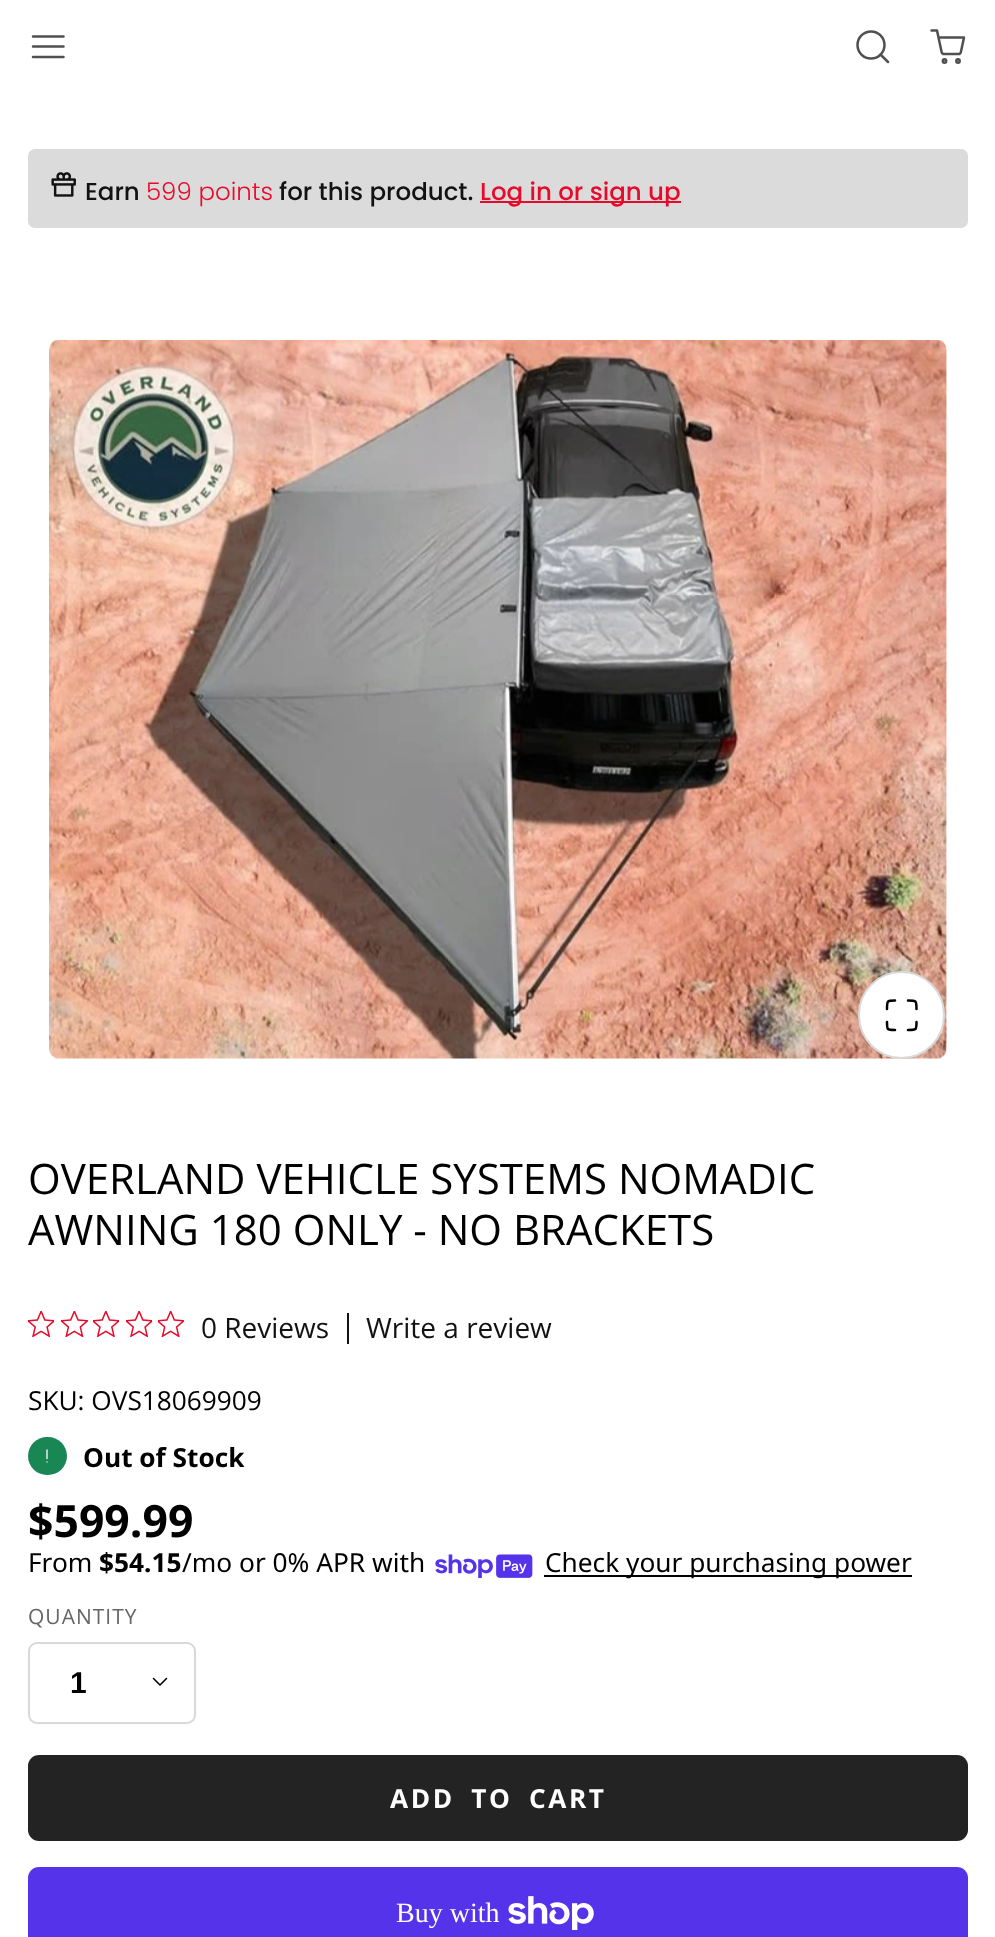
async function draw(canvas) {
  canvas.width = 995
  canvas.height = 1937
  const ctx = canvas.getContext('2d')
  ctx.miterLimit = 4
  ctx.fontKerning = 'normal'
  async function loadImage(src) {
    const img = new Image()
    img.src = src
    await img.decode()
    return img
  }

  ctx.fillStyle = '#fff'
  ctx.fillRect(0, 0, 995, 1937)
  ctx.beginPath()
  ctx.moveTo(33, 46.5)
  ctx.lineTo(63.5, 46.5)
  ctx.moveTo(33, 36.5)
  ctx.lineTo(63.5, 36.5)
  ctx.moveTo(33, 57)
  ctx.lineTo(63.5, 57)
  ctx.strokeStyle = '#505050'
  ctx.lineWidth = 2.5
  ctx.lineCap = 'round'
  ctx.lineJoin = 'round'
  ctx.stroke()
  ctx.beginPath()
  ctx.arc(871, 45, 13.5, 0, 2 * Math.PI)
  ctx.stroke()
  ctx.beginPath()
  ctx.moveTo(888, 62)
  ctx.lineTo(880.5, 54.5)
  ctx.stroke()
  ctx.beginPath()
  ctx.arc(944.5, 61, 1.7, 0, 2 * Math.PI)
  ctx.stroke()
  ctx.beginPath()
  ctx.arc(958, 61, 1.7, 0, 2 * Math.PI)
  ctx.stroke()
  ctx.beginPath()
  ctx.moveTo(931.5, 30.5)
  ctx.lineTo(937, 30.5)
  ctx.lineTo(941.5, 51.5)
  ctx.bezierCurveTo(941.5, 53, 943, 54.5, 945, 54)
  ctx.lineTo(958, 54)
  ctx.bezierCurveTo(959.5, 54.5, 961, 53, 961, 51.5)
  ctx.lineTo(964, 37.5)
  ctx.lineTo(939.5, 37.5)
  ctx.stroke()
  ctx.fillStyle = '#dbdbdb'
  ctx.beginPath()
  ctx.roundRect(28, 149, 940, 79, 7)
  ctx.fill()
  ctx.drawImage(await loadImage('image0.png'), 51, 172, 25, 25)
  ctx.font = '500 24.5px Poppins'
  ctx.fillStyle = '#121212'
  ctx.fillText('Earn', 85, 200)
  ctx.font = '300 24.5px Poppins'
  ctx.fillStyle = '#e70a2a'
  ctx.fillText('599 points', 146, 200)
  ctx.font = '500 24.5px Poppins'
  ctx.fillStyle = '#121212'
  ctx.fillText('for this product.', 279, 200)
  ctx.fillStyle = '#e70a2a'
  ctx.fillRect(480, 201, 201, 2)
  ctx.fillText('Log in or sign up', 480, 200)
  ctx.drawImage(await loadImage('image1.png'), 49, 340, 898, 719)
  ctx.fillStyle = '#fff'
  ctx.beginPath()
  ctx.roundRect(859, 972, 85, 86, 42.5)
  ctx.fill()
  ctx.strokeStyle = '#d9d9d9'
  ctx.lineWidth = 2
  ctx.lineJoin = 'miter'
  ctx.stroke()
  ctx.beginPath()
  ctx.moveTo(895, 1000.5)
  ctx.bezierCurveTo(887, 1000.5, 887, 1000.5, 887, 1009)
  ctx.moveTo(916.5, 1009)
  ctx.bezierCurveTo(916.5, 1000.5, 916.5, 1000.5, 908, 1000.5)
  ctx.moveTo(908, 1030)
  ctx.bezierCurveTo(916.5, 1030, 916.5, 1030, 916.5, 1022)
  ctx.moveTo(887, 1022)
  ctx.bezierCurveTo(887, 1030, 887, 1030, 895, 1030)
  ctx.strokeStyle = '#000'
  ctx.lineWidth = 2.5
  ctx.lineJoin = 'round'
  ctx.stroke()
  ctx.font = '42px Open Sans'
  ctx.fillStyle = '#000'
  ctx.fillText('OVERLAND VEHICLE SYSTEMS NOMADIC', 28, 1194)
  ctx.fillText('AWNING 180 ONLY - NO BRACKETS', 28, 1245)
  ctx.drawImage(await loadImage('image2.png'), 28, 1311, 26, 26)
  ctx.drawImage(await loadImage('image3.png'), 61, 1311, 27, 26)
  ctx.drawImage(await loadImage('image4.png'), 93, 1311, 26, 26)
  ctx.drawImage(await loadImage('image2.png'), 126, 1311, 26, 26)
  ctx.drawImage(await loadImage('image5.png'), 158, 1311, 26, 26)
  ctx.font = '28px Open Sans'
  ctx.fillStyle = '#121212'
  ctx.fillText('0 Reviews', 201, 1338)
  ctx.fillRect(347, 1313, 2, 31)
  ctx.fillText('Write a review', 366, 1338)
  ctx.font = '26.25px Open Sans'
  ctx.fillStyle = '#000'
  ctx.fillText('SKU: OVS18069909', 28, 1410)
  ctx.fillStyle = '#198754'
  ctx.beginPath()
  ctx.roundRect(28, 1437, 39, 38, 19)
  ctx.fill()
  ctx.beginPath()
  ctx.moveTo(47, 1462)
  ctx.lineTo(47, 1462)
  ctx.moveTo(47, 1458.5)
  ctx.lineTo(47, 1450)
  ctx.strokeStyle = '#fff'
  ctx.lineWidth = 1.3
  ctx.stroke()
  ctx.font = 'bold 26.25px Open Sans'
  ctx.fillStyle = '#000'
  ctx.fillText('Out of Stock', 83, 1467)
  ctx.font = 'bold 44.5px Open Sans'
  ctx.fillText('$599.99', 28, 1537)
  ctx.font = '26.25px Noto Sans'
  ctx.fillText('From', 28, 1572)
  ctx.font = 'bold 26.25px Noto Sans'
  ctx.fillText('$54.15', 99, 1572)
  ctx.font = '26.25px Noto Sans'
  ctx.fillText('/mo or 0% APR with', 182, 1572)
  ctx.drawImage(await loadImage('image6.png'), 435, 1554, 98, 24)
  ctx.fillRect(544, 1575, 368, 2)
  ctx.fillText('Check your purchasing power', 545, 1572)
  ctx.letterSpacing = '1px'
  ctx.font = '21px Open Sans'
  ctx.fillStyle = '#666'
  ctx.fillText('QUANTITY', 28, 1624)
  ctx.beginPath()
  ctx.roundRect(29, 1643, 166, 80, 8)
  ctx.strokeStyle = '#d9d9d9'
  ctx.lineWidth = 2
  ctx.lineJoin = 'miter'
  ctx.stroke()
  ctx.letterSpacing = '0px'
  ctx.font = 'bold 30px Liberation Sans'
  ctx.fillStyle = '#000'
  ctx.fillText('1', 70, 1693)
  ctx.beginPath()
  ctx.moveTo(153.5, 1678.5)
  ctx.lineTo(160, 1685)
  ctx.lineTo(166.5, 1678.5)
  ctx.strokeStyle = '#000'
  ctx.lineWidth = 1.6
  ctx.lineJoin = 'round'
  ctx.stroke()
  ctx.fillStyle = '#232323'
  ctx.beginPath()
  ctx.roundRect(28, 1755, 940, 86, 11)
  ctx.fill()
  ctx.letterSpacing = '2.6px'
  ctx.wordSpacing = '7px'
  ctx.font = 'bold 26.25px Open Sans'
  ctx.fillStyle = '#fff'
  ctx.fillText('ADD TO CART', 390, 1808)
  ctx.fillStyle = '#5433eb'
  ctx.beginPath()
  ctx.roundRect(28, 1867, 940, 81, 11)
  ctx.fill()
  ctx.letterSpacing = '0px'
  ctx.wordSpacing = '0px'
  ctx.font = '28px Liberation Serif'
  ctx.fillStyle = '#fff'
  ctx.fillText('Buy with', 396, 1922)
  ctx.drawImage(await loadImage('image7.png'), 508, 1896, 86, 34)
}

draw(document.querySelector('canvas'))
